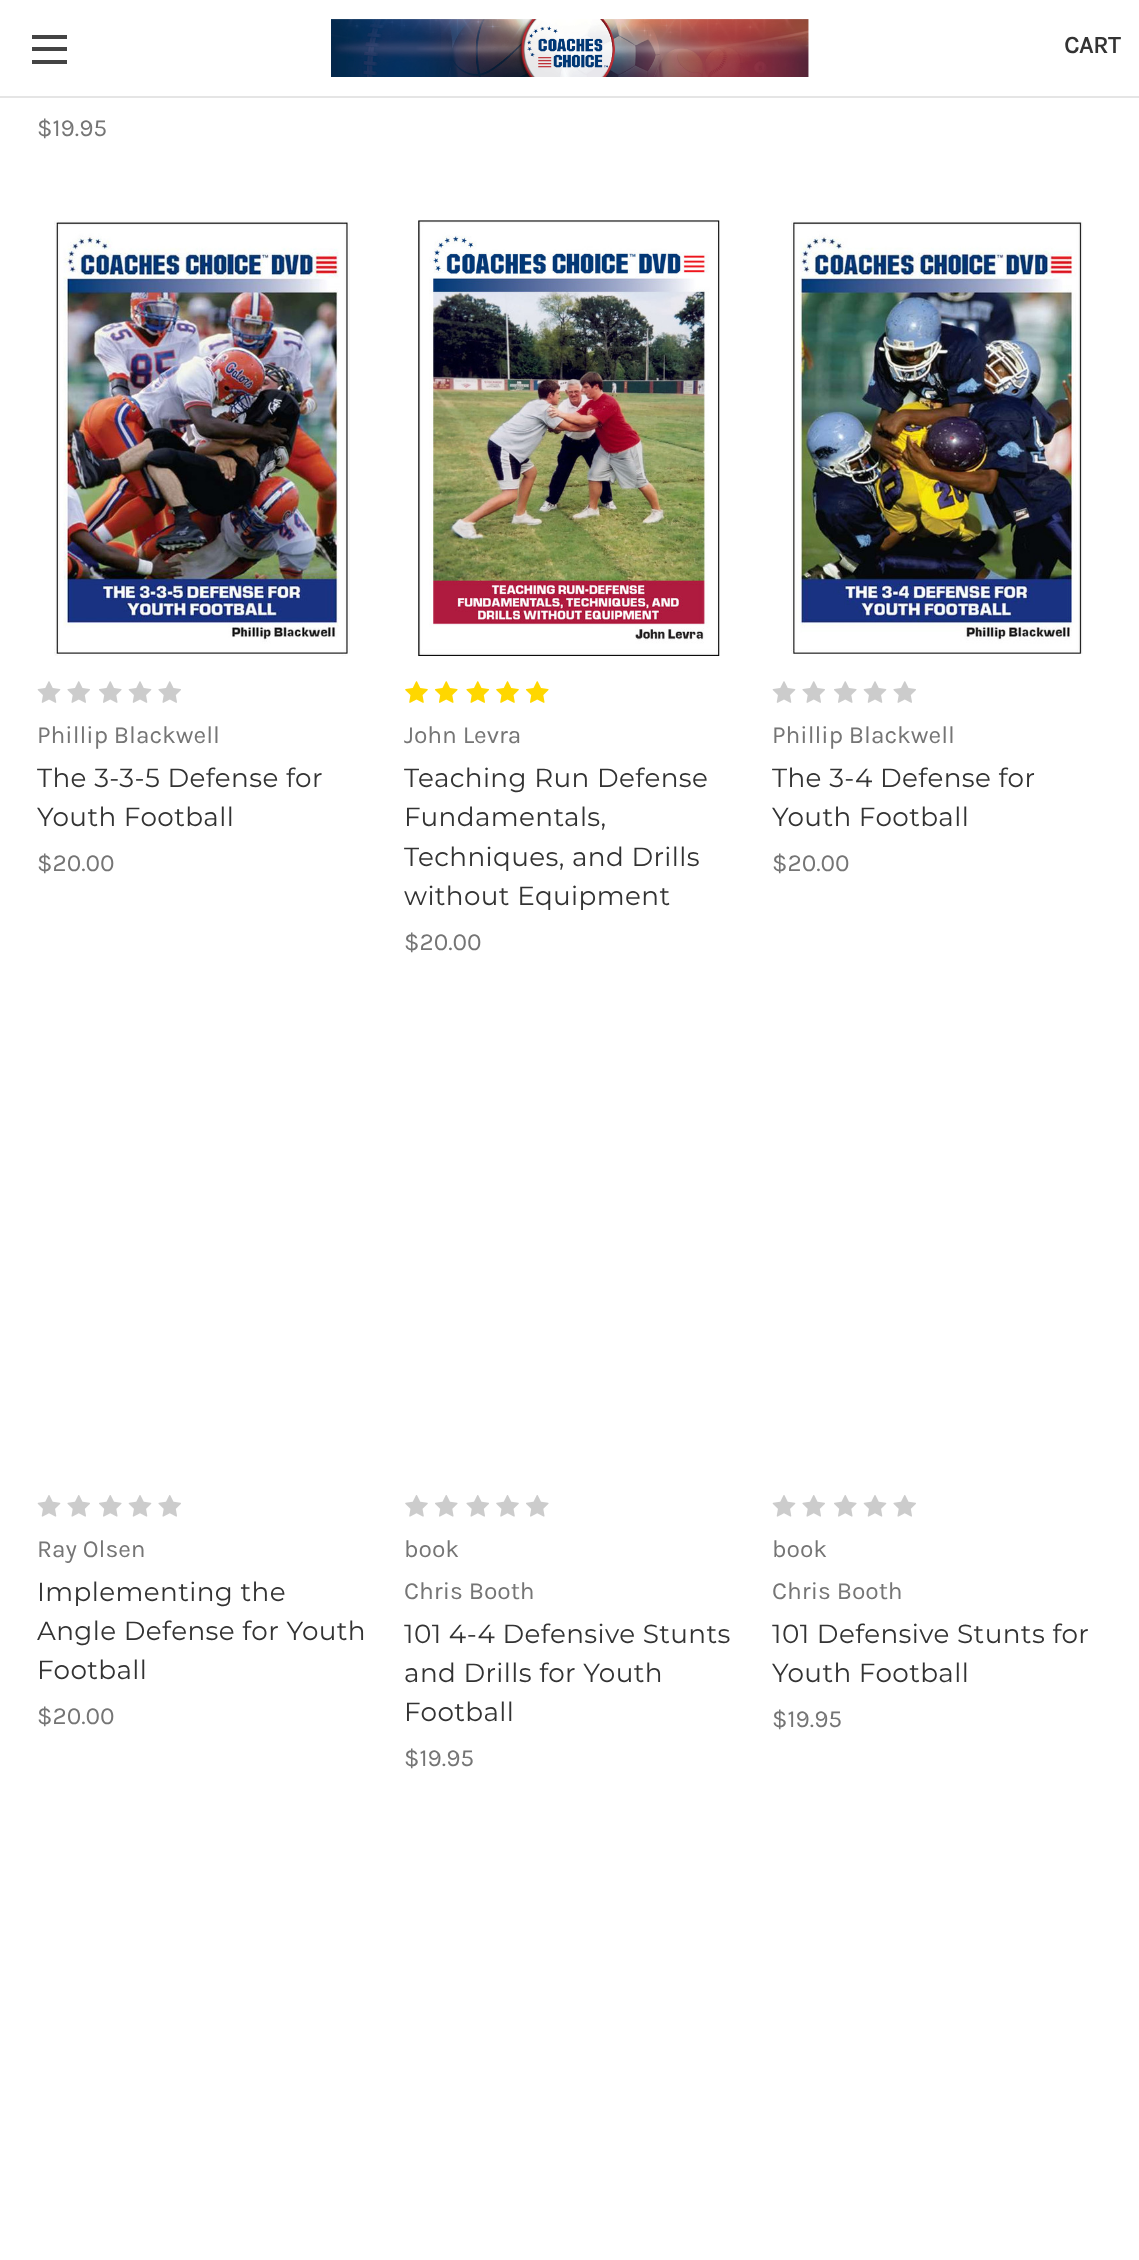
async function draw(canvas) {
  canvas.width = 1139
  canvas.height = 2260
  const ctx = canvas.getContext('2d')
  ctx.miterLimit = 4
  ctx.fontKerning = 'normal'
  async function loadImage(src) {
    const img = new Image()
    img.src = src
    await img.decode()
    return img
  }

  ctx.fillStyle = '#fff'
  ctx.fillRect(0, 0, 1139, 2260)
  ctx.fillStyle = '#e5e5e5'
  ctx.fillRect(0, 96, 1139, 2)
  ctx.fillStyle = '#444'
  ctx.fillRect(32, 47, 35, 4)
  ctx.fillRect(32, 35, 35, 4)
  ctx.fillRect(32, 60, 35, 4)
  ctx.drawImage(await loadImage('image0.png'), 331, 19, 478, 58)
  ctx.font = 'bold 24.5px Karla'
  ctx.fillStyle = '#333'
  ctx.fillText('CART', 1064, 53)
  ctx.font = '24.5px Karla'
  ctx.fillStyle = '#757575'
  ctx.fillText('$19.95', 37, 136)
  ctx.drawImage(await loadImage('image1.png'), 54, 220, 296, 436)
  ctx.drawImage(await loadImage('image2.png'), 37, 681, 24, 22)
  ctx.drawImage(await loadImage('image3.png'), 67, 681, 23, 22)
  ctx.drawImage(await loadImage('image4.png'), 99, 681, 23, 22)
  ctx.drawImage(await loadImage('image2.png'), 128, 681, 24, 22)
  ctx.drawImage(await loadImage('image3.png'), 158, 681, 23, 22)
  ctx.fillText('Phillip Blackwell', 37, 743)
  ctx.letterSpacing = '0.4px'
  ctx.font = '100 26.25px Montserrat'
  ctx.fillStyle = '#333'
  ctx.fillText('The 3-3-5 Defense for', 37, 787)
  ctx.fillText('Youth Football', 37, 826)
  ctx.letterSpacing = '0px'
  ctx.font = '24.5px Karla'
  ctx.fillStyle = '#757575'
  ctx.fillText('$20.00', 37, 871)
  ctx.drawImage(await loadImage('image5.png'), 418, 220, 302, 436)
  ctx.drawImage(await loadImage('image6.png'), 405, 681, 23, 22)
  ctx.drawImage(await loadImage('image7.png'), 434, 681, 24, 22)
  ctx.drawImage(await loadImage('image8.png'), 466, 681, 24, 22)
  ctx.drawImage(await loadImage('image6.png'), 496, 681, 23, 22)
  ctx.drawImage(await loadImage('image7.png'), 525, 681, 24, 22)
  ctx.fillText('John Levra', 404, 743)
  ctx.letterSpacing = '0.4px'
  ctx.font = '100 26.25px Montserrat'
  ctx.fillStyle = '#333'
  ctx.fillText('Teaching Run Defense', 404, 787)
  ctx.fillText('Fundamentals,', 404, 826)
  ctx.fillText('Techniques, and Drills', 404, 866)
  ctx.fillText('without Equipment', 404, 905)
  ctx.letterSpacing = '0px'
  ctx.font = '24.5px Karla'
  ctx.fillStyle = '#757575'
  ctx.fillText('$20.00', 404, 950)
  ctx.drawImage(await loadImage('image9.png'), 791, 220, 292, 434)
  ctx.drawImage(await loadImage('image2.png'), 772, 681, 24, 22)
  ctx.drawImage(await loadImage('image3.png'), 802, 681, 23, 22)
  ctx.drawImage(await loadImage('image4.png'), 834, 681, 23, 22)
  ctx.drawImage(await loadImage('image2.png'), 863, 681, 24, 22)
  ctx.drawImage(await loadImage('image3.png'), 893, 681, 23, 22)
  ctx.fillText('Phillip Blackwell', 772, 743)
  ctx.letterSpacing = '0.4px'
  ctx.font = '100 26.25px Montserrat'
  ctx.fillStyle = '#333'
  ctx.fillText('The 3-4 Defense for', 772, 787)
  ctx.fillText('Youth Football', 772, 826)
  ctx.letterSpacing = '0px'
  ctx.font = '24.5px Karla'
  ctx.fillStyle = '#757575'
  ctx.fillText('$20.00', 772, 871)
  ctx.drawImage(await loadImage('image10.png'), 37, 1495, 24, 22)
  ctx.drawImage(await loadImage('image11.png'), 67, 1495, 23, 22)
  ctx.drawImage(await loadImage('image12.png'), 99, 1495, 23, 22)
  ctx.drawImage(await loadImage('image10.png'), 128, 1495, 24, 22)
  ctx.drawImage(await loadImage('image11.png'), 158, 1495, 23, 22)
  ctx.fillText('Ray Olsen', 37, 1557)
  ctx.letterSpacing = '0.4px'
  ctx.font = '100 26.25px Montserrat'
  ctx.fillStyle = '#333'
  ctx.fillText('Implementing the', 37, 1601)
  ctx.fillText('Angle Defense for Youth', 37, 1640)
  ctx.fillText('Football', 37, 1679)
  ctx.letterSpacing = '0px'
  ctx.font = '24.5px Karla'
  ctx.fillStyle = '#757575'
  ctx.fillText('$20.00', 37, 1724)
  ctx.drawImage(await loadImage('image13.png'), 405, 1495, 23, 22)
  ctx.drawImage(await loadImage('image12.png'), 435, 1495, 23, 22)
  ctx.drawImage(await loadImage('image11.png'), 466, 1495, 23, 22)
  ctx.drawImage(await loadImage('image13.png'), 496, 1495, 23, 22)
  ctx.drawImage(await loadImage('image12.png'), 526, 1495, 23, 22)
  ctx.fillText('book', 404, 1557)
  ctx.fillText('Chris Booth', 404, 1599)
  ctx.letterSpacing = '0.4px'
  ctx.font = '100 26.25px Montserrat'
  ctx.fillStyle = '#333'
  ctx.fillText('101 4-4 Defensive Stunts', 404, 1643)
  ctx.fillText('and Drills for Youth', 404, 1682)
  ctx.fillText('Football', 404, 1721)
  ctx.letterSpacing = '0px'
  ctx.font = '24.5px Karla'
  ctx.fillStyle = '#757575'
  ctx.fillText('$19.95', 404, 1766)
  ctx.drawImage(await loadImage('image10.png'), 772, 1495, 24, 22)
  ctx.drawImage(await loadImage('image11.png'), 802, 1495, 23, 22)
  ctx.drawImage(await loadImage('image12.png'), 834, 1495, 23, 22)
  ctx.drawImage(await loadImage('image10.png'), 863, 1495, 24, 22)
  ctx.drawImage(await loadImage('image11.png'), 893, 1495, 23, 22)
  ctx.fillText('book', 772, 1557)
  ctx.fillText('Chris Booth', 772, 1599)
  ctx.letterSpacing = '0.4px'
  ctx.font = '100 26.25px Montserrat'
  ctx.fillStyle = '#333'
  ctx.fillText('101 Defensive Stunts for', 772, 1643)
  ctx.fillText('Youth Football', 772, 1682)
  ctx.letterSpacing = '0px'
  ctx.font = '24.5px Karla'
  ctx.fillStyle = '#757575'
  ctx.fillText('$19.95', 772, 1727)
}

draw(document.querySelector('canvas'))
